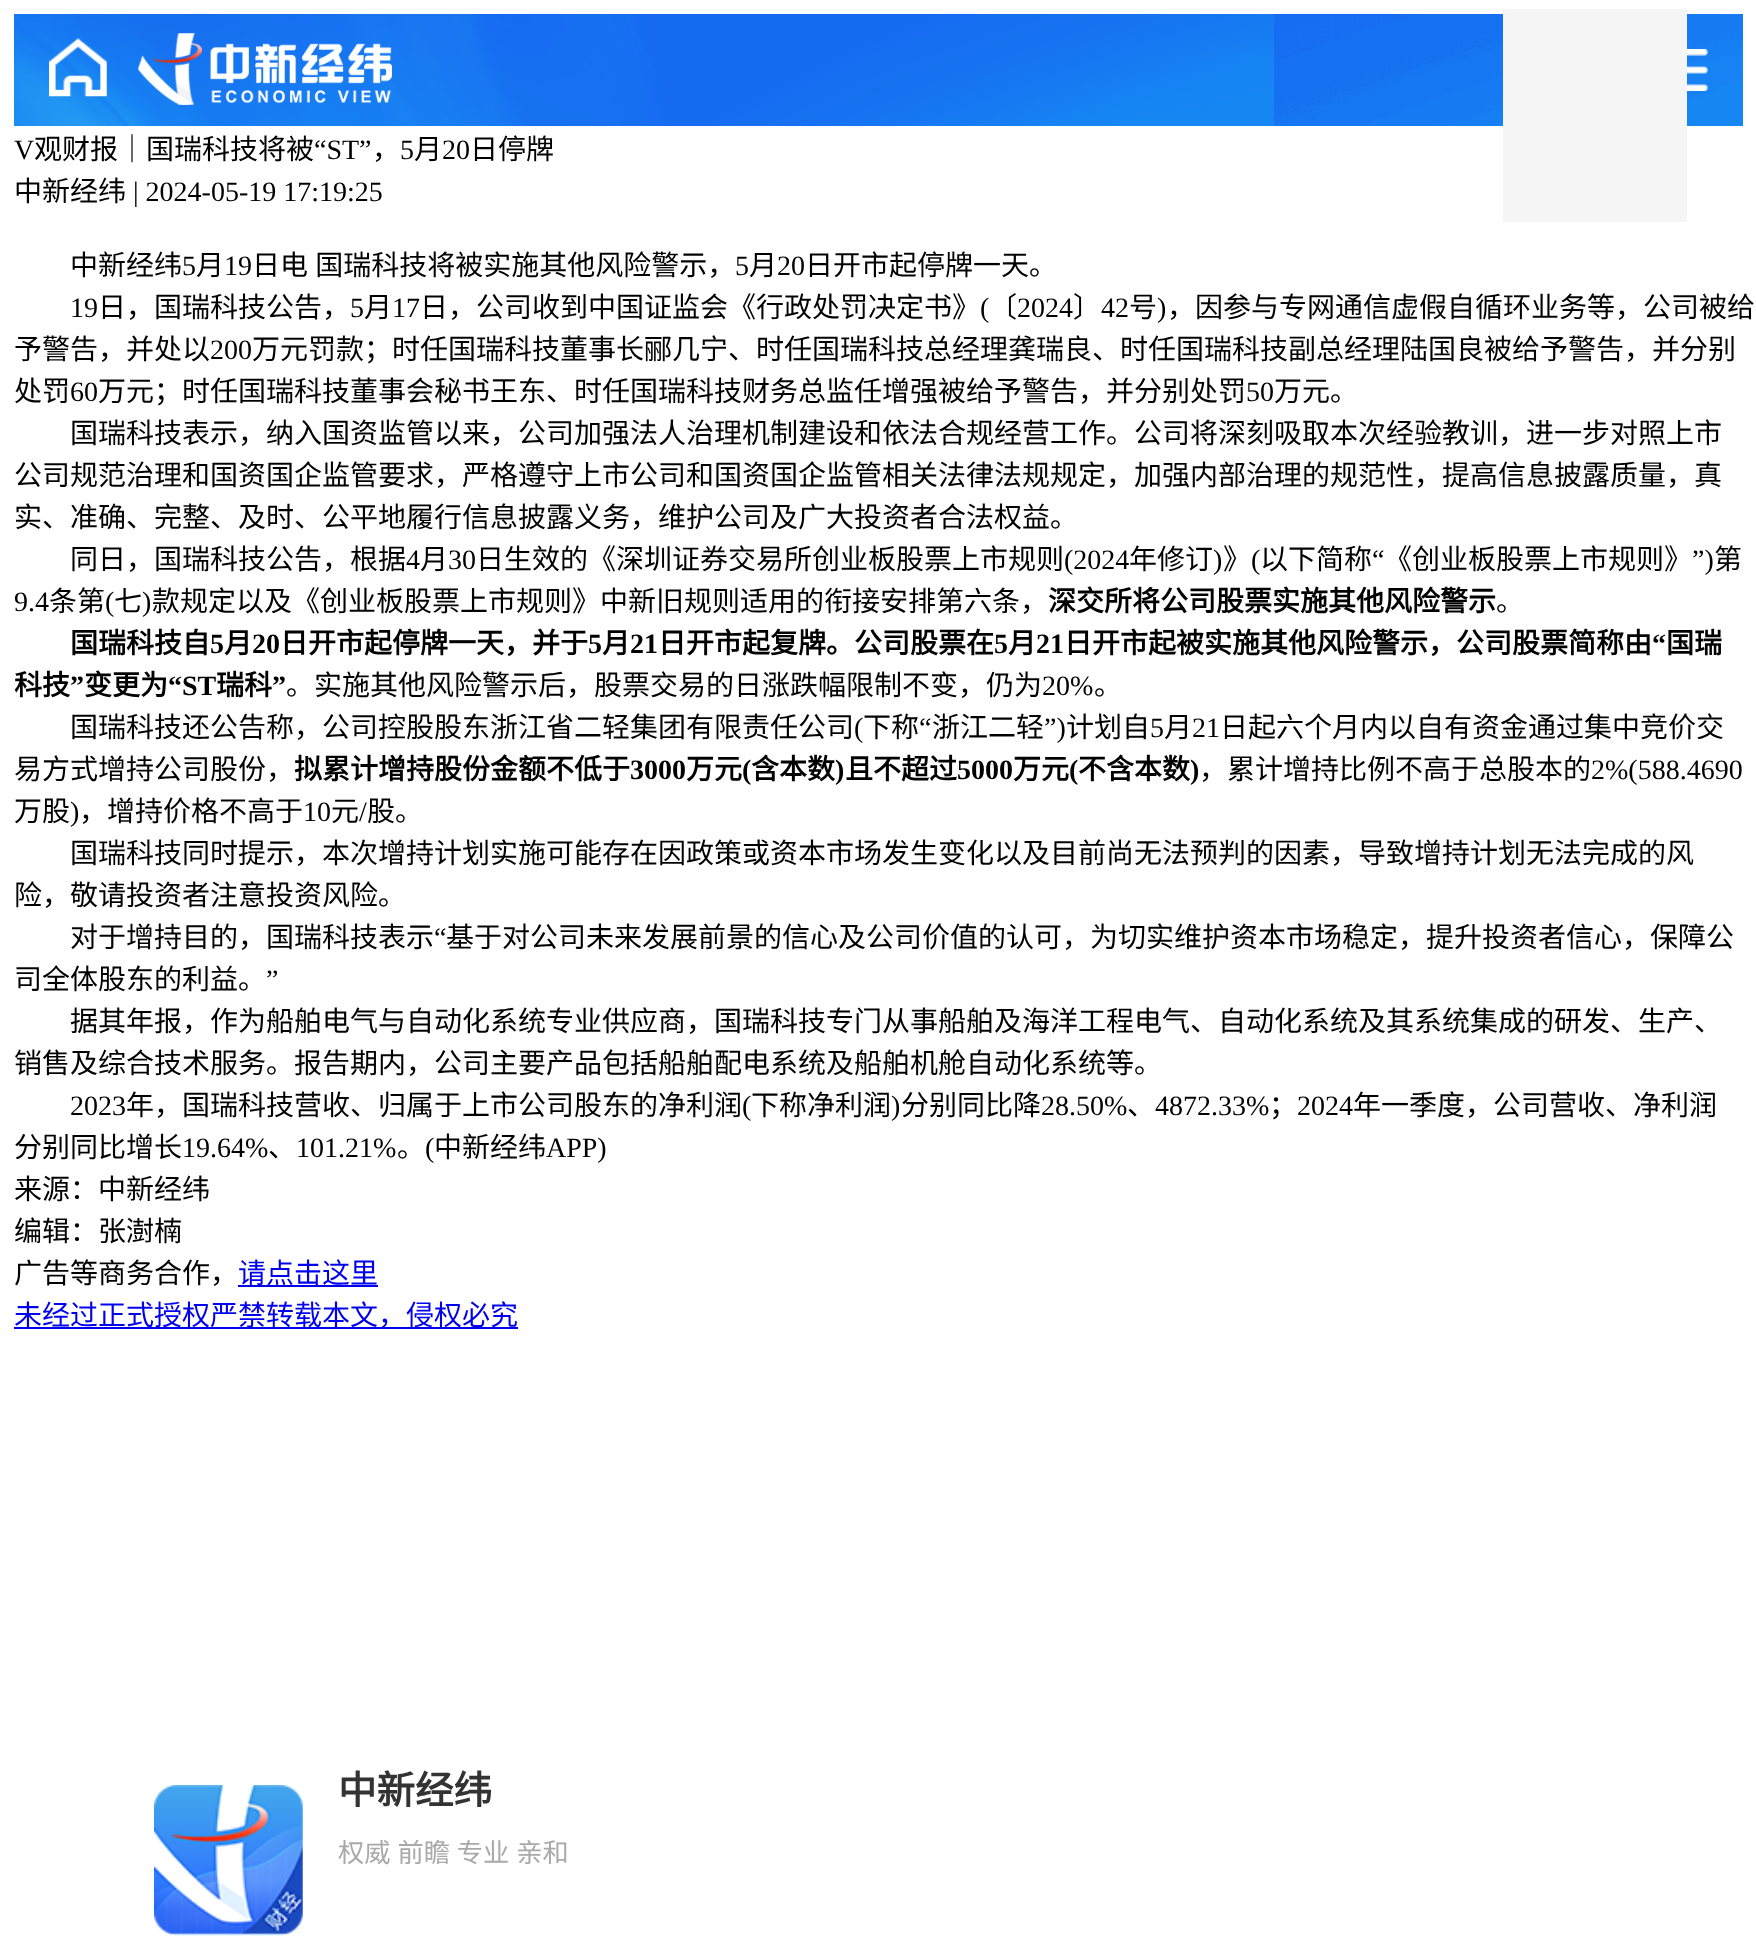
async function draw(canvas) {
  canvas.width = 1756
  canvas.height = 1943
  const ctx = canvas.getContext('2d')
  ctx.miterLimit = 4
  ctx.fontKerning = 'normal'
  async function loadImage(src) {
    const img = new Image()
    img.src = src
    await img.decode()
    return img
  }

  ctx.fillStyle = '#fff'
  ctx.fillRect(0, 0, 1756, 1943)
  ctx.drawImage(await loadImage('image0.png'), 1274, 14, 469, 112)
  ctx.drawImage(await loadImage('image1.png'), 14, 14, 1260, 112)
  ctx.drawImage(await loadImage('image2.png'), 49, 38, 58, 59)
  ctx.drawImage(await loadImage('image3.png'), 138, 33, 254, 72)
  ctx.drawImage(await loadImage('image4.png'), 1687, 49, 21, 42)
  ctx.font = '28px Liberation Serif'
  ctx.fillStyle = '#000'
  ctx.fillText('V', 14, 159)
  ctx.font = '28px Noto Sans CJK SC'
  ctx.fillText('观财报｜国瑞科技将被', 34, 159)
  ctx.font = '28px Liberation Serif'
  ctx.fillText('“ST”', 314, 159)
  ctx.font = '28px Noto Sans CJK SC'
  ctx.fillText('，', 372, 159)
  ctx.font = '28px Liberation Serif'
  ctx.fillText('5', 400, 159)
  ctx.font = '28px Noto Sans CJK SC'
  ctx.fillText('月', 414, 159)
  ctx.font = '28px Liberation Serif'
  ctx.fillText('20', 442, 159)
  ctx.font = '28px Noto Sans CJK SC'
  ctx.fillText('日停牌', 470, 159)
  ctx.fillText('中新经纬', 14, 201)
  ctx.font = '28px Liberation Serif'
  ctx.fillText('| 2024-05-19 17:19:25', 133, 201)
  ctx.font = '28px Noto Sans CJK SC'
  ctx.fillText('中新经纬', 70, 275)
  ctx.font = '28px Liberation Serif'
  ctx.fillText('5', 182, 275)
  ctx.font = '28px Noto Sans CJK SC'
  ctx.fillText('月', 196, 275)
  ctx.font = '28px Liberation Serif'
  ctx.fillText('19', 224, 275)
  ctx.wordSpacing = '1px'
  ctx.font = '28px Noto Sans CJK SC'
  ctx.fillText('日电 国瑞科技将被实施其他风险警示，', 252, 275)
  ctx.wordSpacing = '0px'
  ctx.font = '28px Liberation Serif'
  ctx.fillText('5', 735, 275)
  ctx.font = '28px Noto Sans CJK SC'
  ctx.fillText('月', 749, 275)
  ctx.font = '28px Liberation Serif'
  ctx.fillText('20', 777, 275)
  ctx.font = '28px Noto Sans CJK SC'
  ctx.fillText('日开市起停牌一天。', 805, 275)
  ctx.font = '28px Liberation Serif'
  ctx.fillText('19', 70, 317)
  ctx.font = '28px Noto Sans CJK SC'
  ctx.fillText('日，国瑞科技公告，', 98, 317)
  ctx.font = '28px Liberation Serif'
  ctx.fillText('5', 350, 317)
  ctx.font = '28px Noto Sans CJK SC'
  ctx.fillText('月', 364, 317)
  ctx.font = '28px Liberation Serif'
  ctx.fillText('17', 392, 317)
  ctx.font = '28px Noto Sans CJK SC'
  ctx.fillText('日，公司收到中国证监会《行政处罚决定书》', 420, 317)
  ctx.font = '28px Liberation Serif'
  ctx.fillText('(', 980, 317)
  ctx.font = '28px Noto Sans CJK SC'
  ctx.fillText('〔', 989, 317)
  ctx.font = '28px Liberation Serif'
  ctx.fillText('2024', 1017, 317)
  ctx.font = '28px Noto Sans CJK SC'
  ctx.fillText('〕', 1073, 317)
  ctx.font = '28px Liberation Serif'
  ctx.fillText('42', 1101, 317)
  ctx.font = '28px Noto Sans CJK SC'
  ctx.fillText('号', 1129, 317)
  ctx.font = '28px Liberation Serif'
  ctx.fillText(')', 1157, 317)
  ctx.font = '28px Noto Sans CJK SC'
  ctx.fillText('，因参与专网通信虚假自循环业务等，公司被给', 1167, 317)
  ctx.fillText('予警告，并处以', 14, 359)
  ctx.font = '28px Liberation Serif'
  ctx.fillText('200', 210, 359)
  ctx.font = '28px Noto Sans CJK SC'
  ctx.fillText('万元罚款；时任国瑞科技董事长郦几宁、时任国瑞科技总经理龚瑞良、时任国瑞科技副总经理陆国良被给予警告，并分别', 252, 359)
  ctx.fillText('处罚', 14, 401)
  ctx.font = '28px Liberation Serif'
  ctx.fillText('60', 70, 401)
  ctx.font = '28px Noto Sans CJK SC'
  ctx.fillText('万元；时任国瑞科技董事会秘书王东、时任国瑞科技财务总监任增强被给予警告，并分别处罚', 98, 401)
  ctx.font = '28px Liberation Serif'
  ctx.fillText('50', 1246, 401)
  ctx.font = '28px Noto Sans CJK SC'
  ctx.fillText('万元。', 1274, 401)
  ctx.fillText('国瑞科技表示，纳入国资监管以来，公司加强法人治理机制建设和依法合规经营工作。公司将深刻吸取本次经验教训，进一步对照上市', 70, 443)
  ctx.fillText('公司规范治理和国资国企监管要求，严格遵守上市公司和国资国企监管相关法律法规规定，加强内部治理的规范性，提高信息披露质量，真', 14, 485)
  ctx.fillText('实、准确、完整、及时、公平地履行信息披露义务，维护公司及广大投资者合法权益。', 14, 527)
  ctx.fillText('同日，国瑞科技公告，根据', 70, 569)
  ctx.font = '28px Liberation Serif'
  ctx.fillText('4', 406, 569)
  ctx.font = '28px Noto Sans CJK SC'
  ctx.fillText('月', 420, 569)
  ctx.font = '28px Liberation Serif'
  ctx.fillText('30', 448, 569)
  ctx.font = '28px Noto Sans CJK SC'
  ctx.fillText('日生效的《深圳证券交易所创业板股票上市规则', 476, 569)
  ctx.font = '28px Liberation Serif'
  ctx.fillText('(2024', 1064, 569)
  ctx.font = '28px Noto Sans CJK SC'
  ctx.fillText('年修订', 1129, 569)
  ctx.font = '28px Liberation Serif'
  ctx.fillText(')', 1213, 569)
  ctx.font = '28px Noto Sans CJK SC'
  ctx.fillText('》', 1223, 569)
  ctx.font = '28px Liberation Serif'
  ctx.fillText('(', 1251, 569)
  ctx.font = '28px Noto Sans CJK SC'
  ctx.fillText('以下简称', 1260, 569)
  ctx.font = '28px Liberation Serif'
  ctx.fillText('“', 1372, 569)
  ctx.font = '28px Noto Sans CJK SC'
  ctx.fillText('《创业板股票上市规则》', 1384, 569)
  ctx.font = '28px Liberation Serif'
  ctx.fillText('”)', 1692, 569)
  ctx.font = '28px Noto Sans CJK SC'
  ctx.fillText('第', 1714, 569)
  ctx.font = '28px Liberation Serif'
  ctx.fillText('9.4', 14, 611)
  ctx.font = '28px Noto Sans CJK SC'
  ctx.fillText('条第', 49, 611)
  ctx.font = '28px Liberation Serif'
  ctx.fillText('(', 105, 611)
  ctx.font = '28px Noto Sans CJK SC'
  ctx.fillText('七', 114, 611)
  ctx.font = '28px Liberation Serif'
  ctx.fillText(')', 142, 611)
  ctx.font = '28px Noto Sans CJK SC'
  ctx.fillText('款规定以及《创业板股票上市规则》中新旧规则适用的衔接安排第六条，', 152, 611)
  ctx.font = 'bold 28px Noto Sans CJK SC'
  ctx.fillText('深交所将公司股票实施其他风险警示', 1048, 611)
  ctx.font = '28px Noto Sans CJK SC'
  ctx.fillText('。', 1496, 611)
  ctx.font = 'bold 28px Noto Sans CJK SC'
  ctx.fillText('国瑞科技自', 70, 653)
  ctx.font = 'bold 28px Liberation Serif'
  ctx.fillText('5', 210, 653)
  ctx.font = 'bold 28px Noto Sans CJK SC'
  ctx.fillText('月', 224, 653)
  ctx.font = 'bold 28px Liberation Serif'
  ctx.fillText('20', 252, 653)
  ctx.font = 'bold 28px Noto Sans CJK SC'
  ctx.fillText('日开市起停牌一天，并于', 280, 653)
  ctx.font = 'bold 28px Liberation Serif'
  ctx.fillText('5', 588, 653)
  ctx.font = 'bold 28px Noto Sans CJK SC'
  ctx.fillText('月', 602, 653)
  ctx.font = 'bold 28px Liberation Serif'
  ctx.fillText('21', 630, 653)
  ctx.font = 'bold 28px Noto Sans CJK SC'
  ctx.fillText('日开市起复牌。公司股票在', 658, 653)
  ctx.font = 'bold 28px Liberation Serif'
  ctx.fillText('5', 994, 653)
  ctx.font = 'bold 28px Noto Sans CJK SC'
  ctx.fillText('月', 1008, 653)
  ctx.font = 'bold 28px Liberation Serif'
  ctx.fillText('21', 1036, 653)
  ctx.font = 'bold 28px Noto Sans CJK SC'
  ctx.fillText('日开市起被实施其他风险警示，公司股票简称由', 1064, 653)
  ctx.font = 'bold 28px Liberation Serif'
  ctx.fillText('“', 1652, 653)
  ctx.font = 'bold 28px Noto Sans CJK SC'
  ctx.fillText('国瑞', 1666, 653)
  ctx.fillText('科技', 14, 695)
  ctx.font = 'bold 28px Liberation Serif'
  ctx.fillText('”', 70, 695)
  ctx.font = 'bold 28px Noto Sans CJK SC'
  ctx.fillText('变更为', 84, 695)
  ctx.font = 'bold 28px Liberation Serif'
  ctx.fillText('“ST', 168, 695)
  ctx.font = 'bold 28px Noto Sans CJK SC'
  ctx.fillText('瑞科', 216, 695)
  ctx.font = 'bold 28px Liberation Serif'
  ctx.fillText('”', 272, 695)
  ctx.font = '28px Noto Sans CJK SC'
  ctx.fillText('。实施其他风险警示后，股票交易的日涨跌幅限制不变，仍为', 286, 695)
  ctx.font = '28px Liberation Serif'
  ctx.fillText('20%', 1042, 695)
  ctx.font = '28px Noto Sans CJK SC'
  ctx.fillText('。', 1094, 695)
  ctx.fillText('国瑞科技还公告称，公司控股股东浙江省二轻集团有限责任公司', 70, 737)
  ctx.font = '28px Liberation Serif'
  ctx.fillText('(', 854, 737)
  ctx.font = '28px Noto Sans CJK SC'
  ctx.fillText('下称', 863, 737)
  ctx.font = '28px Liberation Serif'
  ctx.fillText('“', 919, 737)
  ctx.font = '28px Noto Sans CJK SC'
  ctx.fillText('浙江二轻', 932, 737)
  ctx.font = '28px Liberation Serif'
  ctx.fillText('”)', 1044, 737)
  ctx.font = '28px Noto Sans CJK SC'
  ctx.fillText('计划自', 1066, 737)
  ctx.font = '28px Liberation Serif'
  ctx.fillText('5', 1150, 737)
  ctx.font = '28px Noto Sans CJK SC'
  ctx.fillText('月', 1164, 737)
  ctx.font = '28px Liberation Serif'
  ctx.fillText('21', 1192, 737)
  ctx.font = '28px Noto Sans CJK SC'
  ctx.fillText('日起六个月内以自有资金通过集中竞价交', 1220, 737)
  ctx.fillText('易方式增持公司股份，', 14, 779)
  ctx.font = 'bold 28px Noto Sans CJK SC'
  ctx.fillText('拟累计增持股份金额不低于', 294, 779)
  ctx.font = 'bold 28px Liberation Serif'
  ctx.fillText('3000', 630, 779)
  ctx.font = 'bold 28px Noto Sans CJK SC'
  ctx.fillText('万元', 686, 779)
  ctx.font = 'bold 28px Liberation Serif'
  ctx.fillText('(', 742, 779)
  ctx.font = 'bold 28px Noto Sans CJK SC'
  ctx.fillText('含本数', 751, 779)
  ctx.font = 'bold 28px Liberation Serif'
  ctx.fillText(')', 835, 779)
  ctx.font = 'bold 28px Noto Sans CJK SC'
  ctx.fillText('且不超过', 845, 779)
  ctx.font = 'bold 28px Liberation Serif'
  ctx.fillText('5000', 957, 779)
  ctx.font = 'bold 28px Noto Sans CJK SC'
  ctx.fillText('万元', 1013, 779)
  ctx.font = 'bold 28px Liberation Serif'
  ctx.fillText('(', 1069, 779)
  ctx.font = 'bold 28px Noto Sans CJK SC'
  ctx.fillText('不含本数', 1078, 779)
  ctx.font = 'bold 28px Liberation Serif'
  ctx.fillText(')', 1190, 779)
  ctx.font = '28px Noto Sans CJK SC'
  ctx.fillText('，累计增持比例不高于总股本的', 1199, 779)
  ctx.font = '28px Liberation Serif'
  ctx.fillText('2%(588.4690', 1591, 779)
  ctx.font = '28px Noto Sans CJK SC'
  ctx.fillText('万股', 14, 821)
  ctx.font = '28px Liberation Serif'
  ctx.fillText(')', 70, 821)
  ctx.font = '28px Noto Sans CJK SC'
  ctx.fillText('，增持价格不高于', 79, 821)
  ctx.font = '28px Liberation Serif'
  ctx.fillText('10', 303, 821)
  ctx.font = '28px Noto Sans CJK SC'
  ctx.fillText('元', 331, 821)
  ctx.font = '28px Liberation Serif'
  ctx.fillText('/', 359, 821)
  ctx.font = '28px Noto Sans CJK SC'
  ctx.fillText('股。', 367, 821)
  ctx.fillText('国瑞科技同时提示，本次增持计划实施可能存在因政策或资本市场发生变化以及目前尚无法预判的因素，导致增持计划无法完成的风', 70, 863)
  ctx.fillText('险，敬请投资者注意投资风险。', 14, 905)
  ctx.fillText('对于增持目的，国瑞科技表示', 70, 947)
  ctx.font = '28px Liberation Serif'
  ctx.fillText('“', 434, 947)
  ctx.font = '28px Noto Sans CJK SC'
  ctx.fillText('基于对公司未来发展前景的信心及公司价值的认可，为切实维护资本市场稳定，提升投资者信心，保障公', 446, 947)
  ctx.fillText('司全体股东的利益。', 14, 989)
  ctx.font = '28px Liberation Serif'
  ctx.fillText('”', 266, 989)
  ctx.font = '28px Noto Sans CJK SC'
  ctx.fillText('据其年报，作为船舶电气与自动化系统专业供应商，国瑞科技专门从事船舶及海洋工程电气、自动化系统及其系统集成的研发、生产、', 70, 1031)
  ctx.fillText('销售及综合技术服务。报告期内，公司主要产品包括船舶配电系统及船舶机舱自动化系统等。', 14, 1073)
  ctx.font = '28px Liberation Serif'
  ctx.fillText('2023', 70, 1115)
  ctx.font = '28px Noto Sans CJK SC'
  ctx.fillText('年，国瑞科技营收、归属于上市公司股东的净利润', 126, 1115)
  ctx.font = '28px Liberation Serif'
  ctx.fillText('(', 742, 1115)
  ctx.font = '28px Noto Sans CJK SC'
  ctx.fillText('下称净利润', 751, 1115)
  ctx.font = '28px Liberation Serif'
  ctx.fillText(')', 891, 1115)
  ctx.font = '28px Noto Sans CJK SC'
  ctx.fillText('分别同比降', 901, 1115)
  ctx.font = '28px Liberation Serif'
  ctx.fillText('28.50%', 1041, 1115)
  ctx.font = '28px Noto Sans CJK SC'
  ctx.fillText('、', 1127, 1115)
  ctx.font = '28px Liberation Serif'
  ctx.fillText('4872.33%', 1155, 1115)
  ctx.font = '28px Noto Sans CJK SC'
  ctx.fillText('；', 1269, 1115)
  ctx.font = '28px Liberation Serif'
  ctx.fillText('2024', 1297, 1115)
  ctx.font = '28px Noto Sans CJK SC'
  ctx.fillText('年一季度，公司营收、净利润', 1353, 1115)
  ctx.fillText('分别同比增长', 14, 1157)
  ctx.font = '28px Liberation Serif'
  ctx.fillText('19.64%', 182, 1157)
  ctx.font = '28px Noto Sans CJK SC'
  ctx.fillText('、', 268, 1157)
  ctx.font = '28px Liberation Serif'
  ctx.fillText('101.21%', 296, 1157)
  ctx.font = '28px Noto Sans CJK SC'
  ctx.fillText('。', 397, 1157)
  ctx.font = '28px Liberation Serif'
  ctx.fillText('(', 425, 1157)
  ctx.font = '28px Noto Sans CJK SC'
  ctx.fillText('中新经纬', 434, 1157)
  ctx.font = '28px Liberation Serif'
  ctx.fillText('APP)', 546, 1157)
  ctx.font = '28px Noto Sans CJK SC'
  ctx.fillText('来源：中新经纬', 14, 1199)
  ctx.fillText('编辑：张澍楠', 14, 1241)
  ctx.fillText('广告等商务合作，', 14, 1283)
  ctx.fillStyle = '#00e'
  ctx.fillRect(238, 1285, 140, 2)
  ctx.fillText('请点击这里', 238, 1283)
  ctx.fillRect(14, 1327, 504, 2)
  ctx.fillText('未经过正式授权严禁转载本文，侵权必究', 14, 1325)
  ctx.fillStyle = '#f5f5f5'
  ctx.fillRect(1503, 9, 184, 213)
  ctx.drawImage(await loadImage('image5.png'), 154, 1785, 149, 151)
  ctx.font = 'bold 38.5px Noto Sans CJK SC'
  ctx.fillStyle = '#333'
  ctx.fillText('中新经纬', 338, 1804)
  ctx.wordSpacing = '1px'
  ctx.font = '26.25px Noto Sans CJK SC'
  ctx.fillStyle = '#a9a9a9'
  ctx.fillText('权威 前瞻 专业 亲和', 338, 1862)
}

draw(document.querySelector('canvas'))
